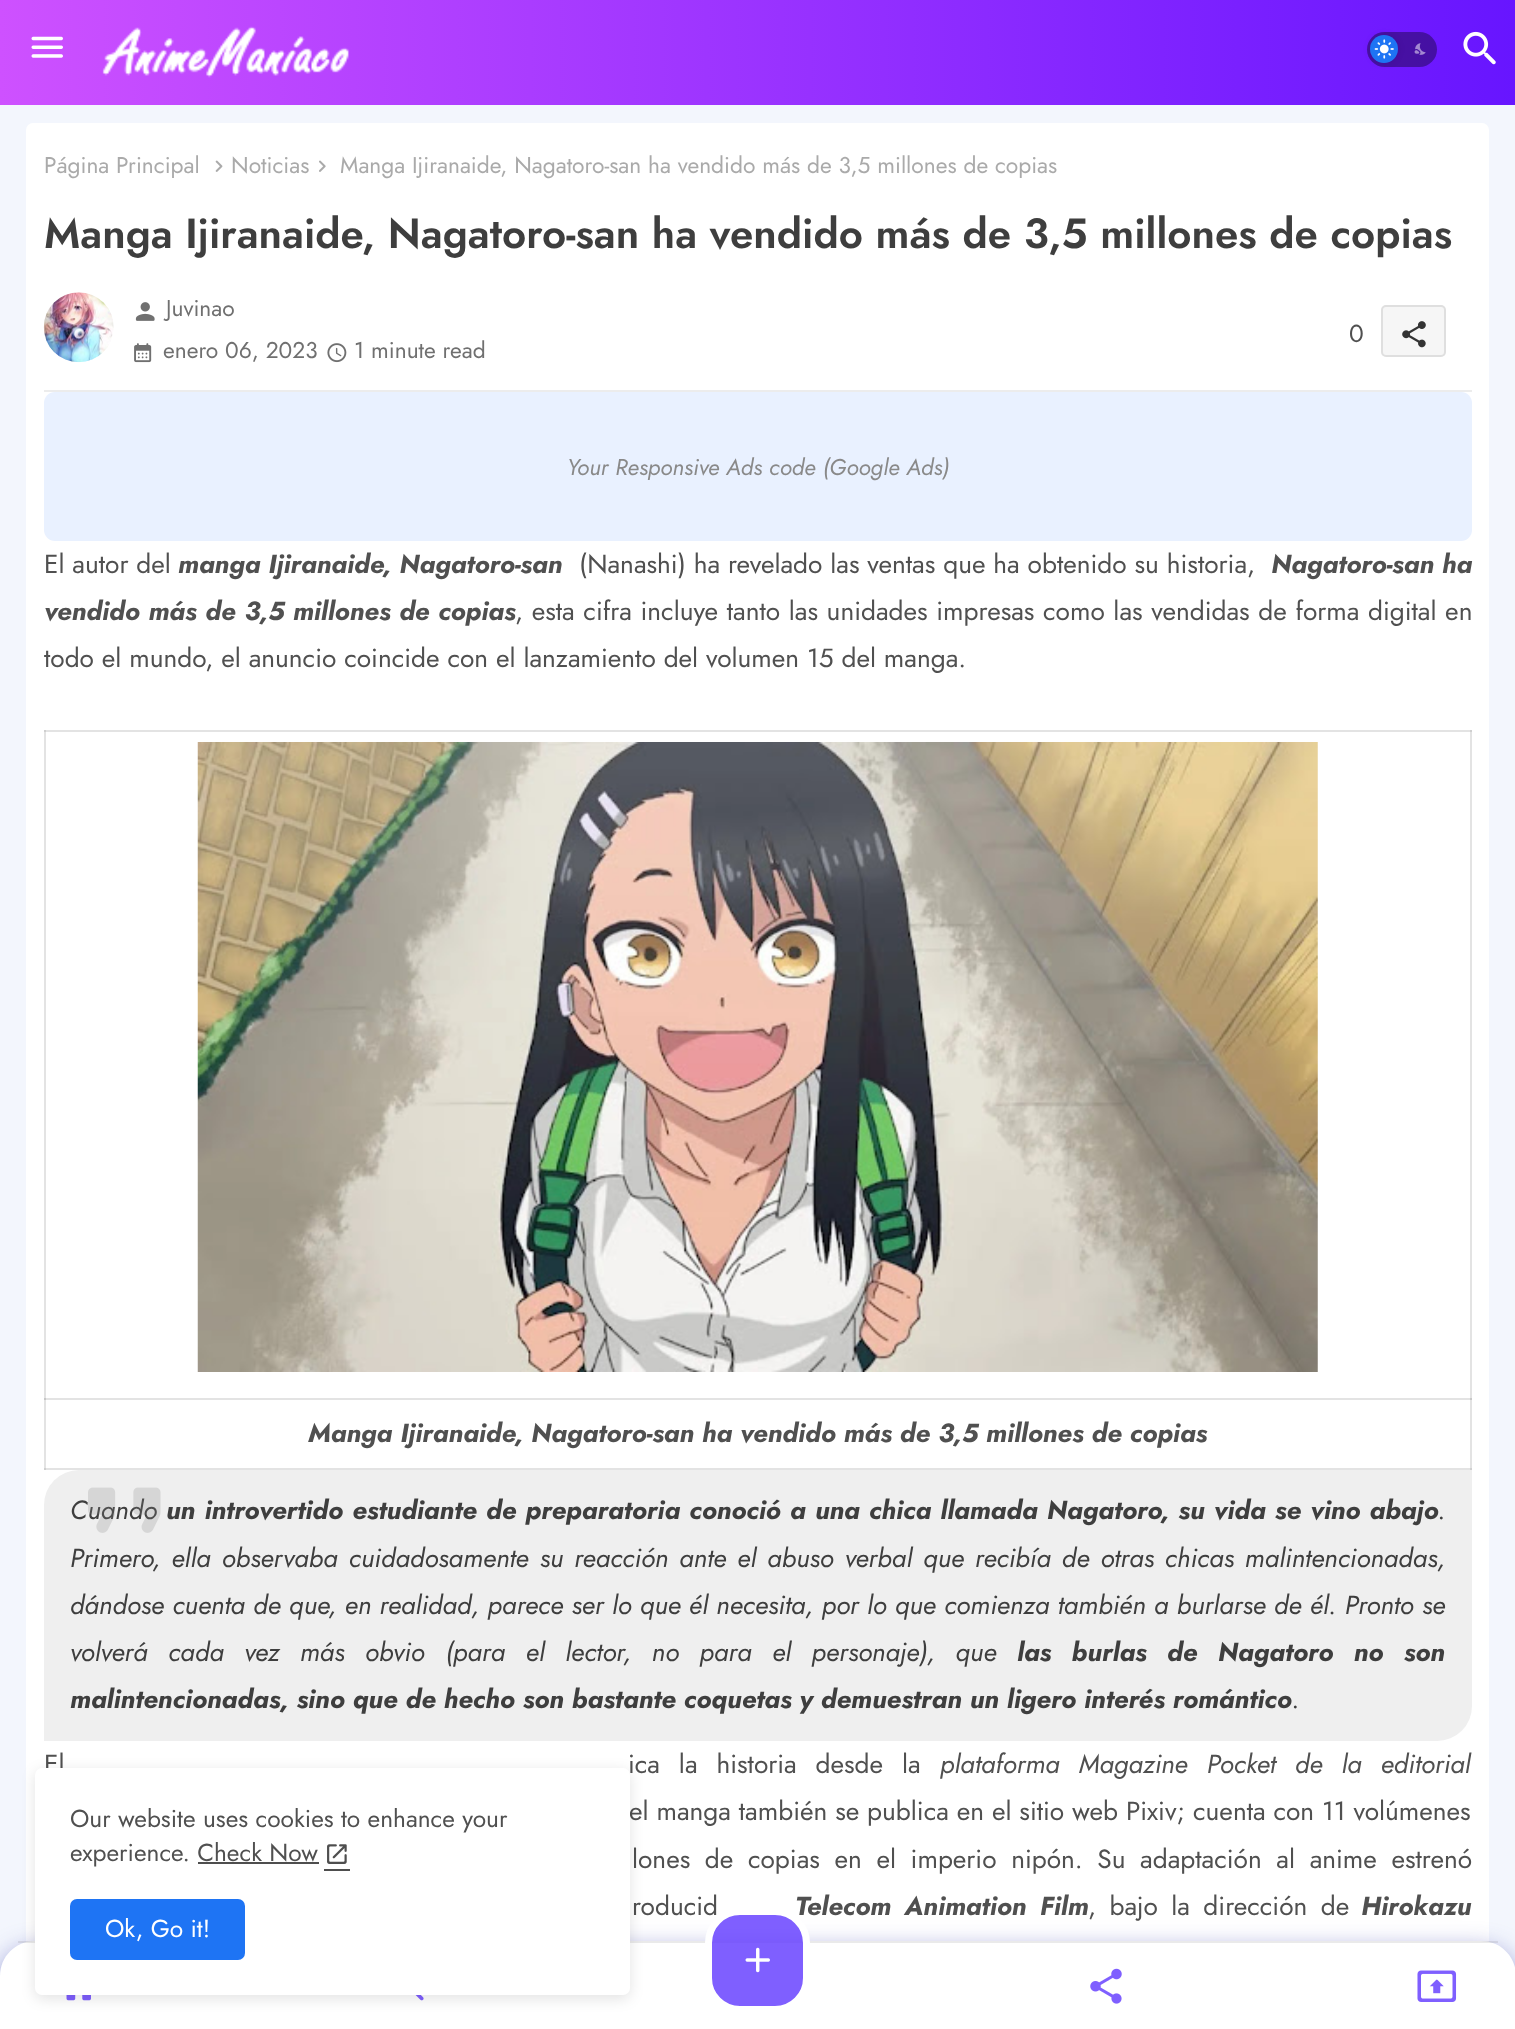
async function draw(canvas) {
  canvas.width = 1515
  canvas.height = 2029
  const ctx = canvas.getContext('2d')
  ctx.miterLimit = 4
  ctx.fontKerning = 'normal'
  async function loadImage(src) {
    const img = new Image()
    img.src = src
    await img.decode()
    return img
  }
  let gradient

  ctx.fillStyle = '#f3f6fd'
  ctx.fillRect(0, 0, 1515, 2029)
  gradient = ctx.createLinearGradient(0, 53, 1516, 52)
  gradient.addColorStop(0, '#ce51ff')
  gradient.addColorStop(1, '#6715ff')
  ctx.fillStyle = gradient
  ctx.fillRect(0, 0, 1515, 105)
  ctx.drawImage(await loadImage('image0.png'), 31, 36, 32, 22)
  ctx.drawImage(await loadImage('image1.png'), 102, 26, 247, 52)
  ctx.fillStyle = '#0000005c'
  ctx.beginPath()
  ctx.roundRect(1367, 32, 70, 35, 17.5)
  ctx.fill()
  ctx.fillStyle = '#0000001a'
  ctx.filter = 'blur(3.5px)'
  ctx.beginPath()
  ctx.roundRect(1370, 35, 28, 28, 14)
  ctx.fill()
  ctx.filter = 'none'
  ctx.fillStyle = '#1e74f4'
  ctx.beginPath()
  ctx.arc(1384, 49, 14, 0, 2 * Math.PI)
  ctx.fill()
  ctx.drawImage(await loadImage('image2.png'), 1374, 39, 20, 20)
  ctx.drawImage(await loadImage('image3.png'), 1414, 43, 12, 12)
  ctx.drawImage(await loadImage('image4.png'), 1463, 31, 33, 34)
  ctx.fillStyle = '#fff'
  ctx.beginPath()
  ctx.roundRect(26, 123, 1463, 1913, 7)
  ctx.fill()
  ctx.fillStyle = '#e3e3e3'
  ctx.fillRect(44, 1398, 1428, 2)
  ctx.fillRect(44, 730, 2, 740)
  ctx.fillStyle = '#c7c7c7'
  ctx.fillRect(44, 1398, 2, 2)
  ctx.fillStyle = '#e3e3e3'
  ctx.fillRect(44, 1468, 1428, 2)
  ctx.fillStyle = '#cfcfcf'
  ctx.fillRect(44, 1468, 2, 2)
  ctx.fillStyle = '#e3e3e3'
  ctx.fillRect(1470, 730, 2, 740)
  ctx.fillStyle = '#c7c7c7'
  ctx.fillRect(1470, 1398, 2, 2)
  ctx.fillStyle = '#cfcfcf'
  ctx.fillRect(1470, 1468, 2, 2)
  ctx.font = '22.75px Jost'
  ctx.fillStyle = '#aaa'
  ctx.fillText('Página Principal', 44, 173)
  ctx.drawImage(await loadImage('image5.png'), 215, 160, 8, 12)
  ctx.fillText('Noticias', 231, 173)
  ctx.drawImage(await loadImage('image6.png'), 319, 160, 7, 12)
  ctx.fillText('Manga Ijiranaide, Nagatoro-san ha vendido más de 3,5 millones de copias', 340, 173)
  ctx.font = '600 42px Jost'
  ctx.fillStyle = '#3e3e3e'
  ctx.fillText('Manga Ijiranaide, Nagatoro-san ha vendido más de 3,5 millones de copias', 44, 248)
  ctx.fillStyle = '#ececec'
  ctx.fillRect(44, 390, 1428, 2)
  ctx.drawImage(await loadImage('image7.png'), 43, 292, 71, 71)
  ctx.drawImage(await loadImage('image8.png'), 135, 302, 20, 19)
  ctx.font = '22.75px Jost'
  ctx.fillStyle = '#707070'
  ctx.fillText('Juvinao', 166, 316)
  ctx.drawImage(await loadImage('image9.png'), 134, 343, 18, 20)
  ctx.fillText('enero 06, 2023', 163, 358)
  ctx.drawImage(await loadImage('image10.png'), 327, 343, 20, 20)
  ctx.fillText('1 minute read', 354, 358)
  ctx.font = '24.5px Jost'
  ctx.fillStyle = '#505050'
  ctx.fillText('0', 1349, 342)
  ctx.fillStyle = '#f6f6f6'
  ctx.beginPath()
  ctx.roundRect(1381, 305, 65, 52, 5)
  ctx.fill()
  ctx.beginPath()
  ctx.roundRect(1382, 306, 63, 50, 4)
  ctx.strokeStyle = '#81818130'
  ctx.lineWidth = 2
  ctx.stroke()
  ctx.drawImage(await loadImage('image11.png'), 1402, 321, 24, 27)
  ctx.fillStyle = '#e9f1ff'
  ctx.beginPath()
  ctx.roundRect(44, 392, 1428, 149, 11)
  ctx.fill()
  ctx.font = 'italic 22.75px Jost'
  ctx.fillStyle = '#898989'
  ctx.fillText('Your Responsive Ads code (Google Ads)', 567, 475)
  ctx.font = '26.25px Jost'
  ctx.fillStyle = '#505050'
  ctx.fillText('El autor del', 44, 573)
  ctx.font = 'italic bold 26.25px Jost'
  ctx.fillText('manga Ijiranaide, Nagatoro-san', 178, 573)
  ctx.font = '26.25px Jost'
  ctx.fillText('(Nanashi) ha revelado las ventas que ha obtenido su historia,', 579, 573)
  ctx.font = 'italic bold 26.25px Jost'
  ctx.fillText('Nagatoro-san ha', 1271, 573)
  ctx.wordSpacing = '0.75px'
  ctx.fillText('vendido más de 3,5 millones de copias', 44, 620)
  ctx.font = '26.25px Jost'
  ctx.fillText(', esta cifra incluye tanto las unidades impresas como las vendidas de forma digital en', 515, 620)
  ctx.wordSpacing = '0px'
  ctx.fillText('todo el mundo, el anuncio coincide con el lanzamiento del volumen 15 del manga.', 44, 667)
  ctx.fillStyle = '#e3e3e3'
  ctx.fillRect(44, 730, 1428, 2)
  ctx.fillStyle = '#cfcfcf'
  ctx.fillRect(44, 730, 2, 2)
  ctx.fillRect(1470, 730, 2, 2)
  ctx.drawImage(await loadImage('image12.png'), 197, 742, 1121, 630)
  ctx.font = 'italic bold 26.25px Jost'
  ctx.fillStyle = '#505050'
  ctx.fillText('Manga Ijiranaide, Nagatoro-san ha vendido más de 3,5 millones de copias', 308, 1442)
  ctx.fillStyle = '#efefef'
  ctx.beginPath()
  ctx.roundRect(44, 1470, 1428, 271, [35, 0, 35, 0])
  ctx.fill()
  ctx.font = 'italic 26.25px Jost'
  ctx.fillStyle = '#3e3e3e'
  ctx.fillText('Cuando', 70, 1519)
  ctx.drawImage(await loadImage('image13.png'), 88, 1487, 73, 46)
  ctx.wordSpacing = '1.25px'
  ctx.font = 'italic bold 26.25px Jost'
  ctx.fillText('un introvertido estudiante de preparatoria conoció a una chica llamada Nagatoro, su vida se vino abajo', 166, 1519)
  ctx.wordSpacing = '0px'
  ctx.font = 'italic 26.25px Jost'
  ctx.fillText('.', 1438, 1519)
  ctx.wordSpacing = '3px'
  ctx.fillText('Primero, ella observaba cuidadosamente su reacción ante el abuso verbal que recibía de otras chicas malintencionadas,', 70, 1567)
  ctx.wordSpacing = '0.3px'
  ctx.fillText('dándose cuenta de que, en realidad, parece ser lo que él necesita, por lo que comienza también a burlarse de él. Pronto se', 70, 1614)
  ctx.wordSpacing = '12.5px'
  ctx.fillText('volverá cada vez más obvio (para el lector, no para el personaje), que', 70, 1661)
  ctx.font = 'italic bold 26.25px Jost'
  ctx.fillText('las burlas de Nagatoro no son', 1017, 1661)
  ctx.wordSpacing = '0px'
  ctx.fillText('malintencionadas, sino que de hecho son bastante coquetas y demuestran un ligero interés romántico', 70, 1708)
  ctx.font = 'italic 26.25px Jost'
  ctx.fillText('.', 1292, 1708)
  ctx.font = '26.25px Jost'
  ctx.fillStyle = '#505050'
  ctx.fillText('El', 44, 1773)
  ctx.wordSpacing = '11px'
  ctx.fillText('ica la historia desde la', 628, 1773)
  ctx.font = 'italic 26.25px Jost'
  ctx.fillText('plataforma Magazine Pocket de la editorial', 940, 1773)
  ctx.wordSpacing = '0px'
  ctx.font = '26.25px Jost'
  ctx.fillText('el manga también se publica en el sitio web Pixiv; cuenta con 11 volúmenes', 629, 1820)
  ctx.wordSpacing = '6.75px'
  ctx.fillText('lones de copias en el imperio nipón. Su adaptación al anime estrenó', 632, 1868)
  ctx.wordSpacing = '5.5px'
  ctx.fillText('roducid', 632, 1915)
  ctx.font = 'italic bold 26.25px Jost'
  ctx.fillText('Telecom Animation Film', 795, 1915)
  ctx.font = '26.25px Jost'
  ctx.fillText(', bajo la dirección de', 1088, 1915)
  ctx.wordSpacing = '0px'
  ctx.font = 'italic bold 26.25px Jost'
  ctx.fillText('Hirokazu', 1361, 1915)
  ctx.fillStyle = '#2125a282'
  ctx.filter = 'blur(13px)'
  ctx.beginPath()
  ctx.roundRect(0, 1950, 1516, 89, 35)
  ctx.fill()
  ctx.filter = 'none'
  ctx.fillStyle = '#fff'
  ctx.beginPath()
  ctx.moveTo(35, 1941)
  ctx.lineTo(1481, 1941)
  ctx.bezierCurveTo(1500.5, 1941, 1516, 1956.5, 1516, 1976)
  ctx.lineTo(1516, 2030)
  ctx.lineTo(0, 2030)
  ctx.lineTo(0, 1976)
  ctx.bezierCurveTo(0, 1956.5, 15.5, 1941, 35, 1941)
  ctx.closePath()
  ctx.fill()
  ctx.fillStyle = '#6c6c6c24'
  ctx.fillRect(18, 1941, 1480, 2)
  ctx.drawImage(await loadImage('image15.png'), 66, 1995, 25, 6)
  ctx.drawImage(await loadImage('image16.png'), 415, 1995, 9, 6)
  ctx.fillStyle = '#0000001c'
  ctx.filter = 'blur(7px)'
  ctx.beginPath()
  ctx.roundRect(35, 1771, 595, 228, 7)
  ctx.fill()
  ctx.filter = 'none'
  ctx.fillStyle = '#fff'
  ctx.beginPath()
  ctx.roundRect(35, 1768, 595, 227, 7)
  ctx.fill()
  ctx.font = '24.5px Jost'
  ctx.fillStyle = '#505050'
  ctx.fillText('Our website uses cookies to enhance your', 70, 1827)
  ctx.fillText('experience. Check Now', 70, 1861)
  ctx.drawImage(await loadImage('image14.png'), 327, 1844, 20, 20)
  ctx.fillStyle = '#4e4e4e'
  ctx.fillRect(198, 1862, 121, 2)
  ctx.fillRect(324, 1869, 26, 2)
  ctx.fillStyle = '#1e74f4'
  ctx.beginPath()
  ctx.roundRect(70, 1899, 175, 61, 7)
  ctx.fill()
  ctx.fillStyle = '#fff'
  ctx.fillText('Ok, Go it!', 105, 1937)
  ctx.fillStyle = '#633cffd1'
  ctx.beginPath()
  ctx.roundRect(708.5, 1911.5, 98, 98, 31.5)
  ctx.fill()
  ctx.strokeStyle = '#fff'
  ctx.lineWidth = 7
  ctx.stroke()
  ctx.drawImage(await loadImage('image17.png'), 745, 1947, 25, 26)
  ctx.drawImage(await loadImage('image18.png'), 1090, 1968, 32, 36)
  ctx.drawImage(await loadImage('image19.png'), 1417, 1970, 40, 32)
}

draw(document.querySelector('canvas'))
